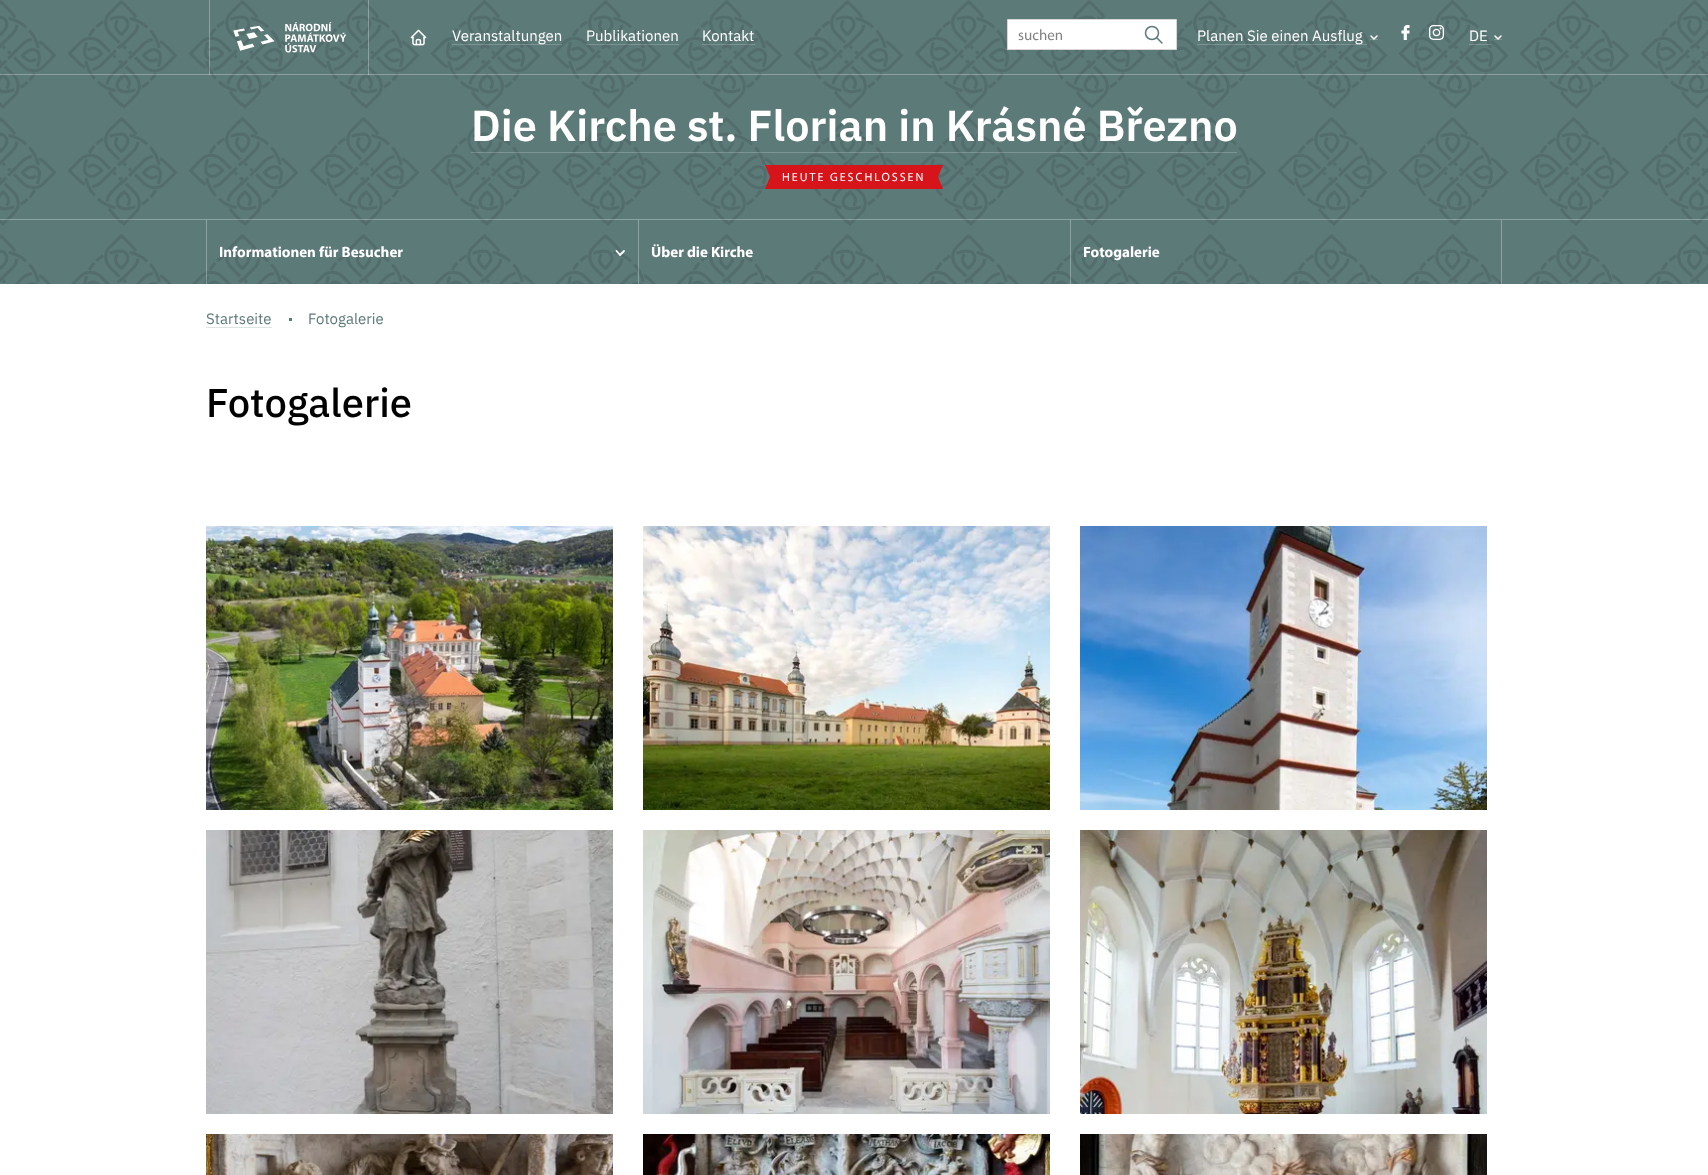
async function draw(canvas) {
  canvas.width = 1708
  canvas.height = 1175
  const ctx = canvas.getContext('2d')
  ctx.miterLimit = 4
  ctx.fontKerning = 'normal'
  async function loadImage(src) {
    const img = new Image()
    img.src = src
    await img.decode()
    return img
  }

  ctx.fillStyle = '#fff'
  ctx.fillRect(0, 0, 1708, 1175)
  ctx.fillStyle = '#5c7a78'
  ctx.fillRect(0, 0, 1708, 284)
  ctx.drawImage(await loadImage('image0.png'), 0, 0, 1708, 75)
  ctx.fillStyle = '#ffffff4d'
  ctx.fillRect(0, 74, 1708, 1)
  ctx.fillRect(368, 0, 1, 75)
  ctx.fillRect(209, 0, 1, 75)
  ctx.drawImage(await loadImage('image1.png'), 233, 22, 114, 31)
  ctx.drawImage(await loadImage('image2.png'), 410, 29, 17, 17)
  ctx.fillStyle = '#ffffff33'
  ctx.fillRect(452, 44, 110, 1)
  ctx.font = '15px IBM Plex Sans'
  ctx.fillStyle = '#fff'
  ctx.fillText('Veranstaltungen', 452, 41)
  ctx.fillText('Publikationen', 586, 41)
  ctx.fillStyle = '#ffffff33'
  ctx.fillRect(586, 44, 93, 1)
  ctx.fillStyle = '#fff'
  ctx.fillText('Kontakt', 702, 41)
  ctx.fillStyle = '#ffffff33'
  ctx.fillRect(702, 44, 53, 1)
  ctx.fillStyle = '#fff'
  ctx.beginPath()
  ctx.rect(1007.5, 19.5, 169, 30)
  ctx.fill()
  ctx.strokeStyle = '#dad6d6'
  ctx.stroke()
  ctx.font = '15px Myriad'
  ctx.fillStyle = '#808080'
  ctx.fillText('suchen', 1018, 40)
  ctx.beginPath()
  ctx.arc(1152, 33, 6.5, 0, 2 * Math.PI)
  ctx.strokeStyle = '#5c7a78'
  ctx.lineWidth = 1.5
  ctx.stroke()
  ctx.beginPath()
  ctx.moveTo(1162, 43)
  ctx.lineTo(1157, 38)
  ctx.lineCap = 'round'
  ctx.lineJoin = 'round'
  ctx.stroke()
  ctx.fillStyle = '#ffffff33'
  ctx.fillRect(1197, 44, 170, 1)
  ctx.font = '15px IBM Plex Sans'
  ctx.fillStyle = '#fff'
  ctx.fillText('Planen Sie einen Ausflug', 1197, 41)
  ctx.fillStyle = '#7d9593'
  ctx.fillRect(1370, 39, 8, 1)
  ctx.beginPath()
  ctx.moveTo(1377, 36)
  ctx.lineTo(1374, 39)
  ctx.lineTo(1371, 36)
  ctx.strokeStyle = '#fff'
  ctx.stroke()
  ctx.drawImage(await loadImage('image3.png'), 1401, 25, 9, 15)
  ctx.drawImage(await loadImage('image4.png'), 1429, 25, 15, 15)
  ctx.fillStyle = '#fff'
  ctx.fillText('DE', 1469, 41)
  ctx.fillStyle = '#ffffff33'
  ctx.fillRect(1469, 44, 22, 1)
  ctx.fillStyle = '#7d9593'
  ctx.fillRect(1494, 39, 8, 1)
  ctx.beginPath()
  ctx.moveTo(1501, 36)
  ctx.lineTo(1498, 39)
  ctx.lineTo(1495, 36)
  ctx.stroke()
  ctx.drawImage(await loadImage('image5.png'), 0, 75, 1708, 209)
  ctx.fillStyle = '#ffffff4d'
  ctx.fillRect(0, 219, 1708, 1)
  ctx.font = '600 43.25px IBM Plex Sans'
  ctx.fillStyle = '#fff'
  ctx.fillText('Die Kirche st. Florian in Krásné Březno', 471, 141)
  ctx.fillStyle = '#ffffff33'
  ctx.fillRect(471, 152, 766, 1)
  ctx.fillStyle = '#d7141a'
  ctx.fillRect(775, 165, 158, 24)
  ctx.beginPath()
  ctx.moveTo(765, 165)
  ctx.lineTo(775, 165)
  ctx.lineTo(770, 177)
  ctx.closePath()
  ctx.fill()
  ctx.fillRect(770, 165, 5, 24)
  ctx.beginPath()
  ctx.moveTo(775, 189)
  ctx.lineTo(765, 189)
  ctx.lineTo(770, 177)
  ctx.closePath()
  ctx.fill()
  ctx.letterSpacing = '2px'
  ctx.font = '12px Myriad'
  ctx.fillStyle = '#fff'
  ctx.fillText('HEUTE GESCHLOSSEN', 782, 181)
  ctx.fillStyle = '#d7141a'
  ctx.beginPath()
  ctx.moveTo(933, 165)
  ctx.lineTo(943, 165)
  ctx.lineTo(938, 177)
  ctx.closePath()
  ctx.moveTo(943, 189)
  ctx.lineTo(933, 189)
  ctx.lineTo(938, 177)
  ctx.closePath()
  ctx.fill()
  ctx.fillRect(933, 165, 5, 24)
  ctx.fillStyle = '#ffffff4d'
  ctx.fillRect(206, 220, 1, 64)
  ctx.letterSpacing = '0px'
  ctx.font = 'bold 15px Myriad'
  ctx.fillStyle = '#fff'
  ctx.fillText('Informationen für Besucher', 219, 257)
  ctx.beginPath()
  ctx.moveTo(624, 251)
  ctx.lineTo(620, 255)
  ctx.lineTo(616.5, 251)
  ctx.lineWidth = 1.8
  ctx.stroke()
  ctx.fillStyle = '#ffffff4d'
  ctx.fillRect(638, 220, 1, 64)
  ctx.fillStyle = '#fff'
  ctx.fillText('Über die Kirche', 651, 257)
  ctx.fillStyle = '#ffffff4d'
  ctx.fillRect(1501, 220, 1, 64)
  ctx.fillRect(1070, 220, 1, 64)
  ctx.fillStyle = '#fff'
  ctx.fillText('Fotogalerie', 1083, 257)
  ctx.font = '15px IBM Plex Sans'
  ctx.fillStyle = '#5c7a78'
  ctx.fillText('Startseite', 206, 324)
  ctx.fillStyle = '#dee4e4'
  ctx.fillRect(206, 327, 66, 1)
  ctx.fillStyle = '#5c7a78'
  ctx.fillRect(289, 318, 3, 3)
  ctx.fillText('Fotogalerie', 308, 324)
  ctx.font = '500 40px IBM Plex Sans'
  ctx.fillStyle = '#000'
  ctx.fillText('Fotogalerie', 206, 417)
  ctx.drawImage(await loadImage('image6.png'), 206, 526, 407, 284)
  ctx.drawImage(await loadImage('image7.png'), 643, 526, 407, 284)
  ctx.drawImage(await loadImage('image8.png'), 1080, 526, 407, 284)
  ctx.drawImage(await loadImage('image9.png'), 206, 830, 407, 284)
  ctx.drawImage(await loadImage('image10.png'), 643, 830, 407, 284)
  ctx.drawImage(await loadImage('image11.png'), 1080, 830, 407, 284)
  ctx.drawImage(await loadImage('image12.png'), 206, 1134, 407, 41)
  ctx.drawImage(await loadImage('image13.png'), 643, 1134, 407, 41)
  ctx.drawImage(await loadImage('image14.png'), 1080, 1134, 407, 41)
}

draw(document.querySelector('canvas'))
